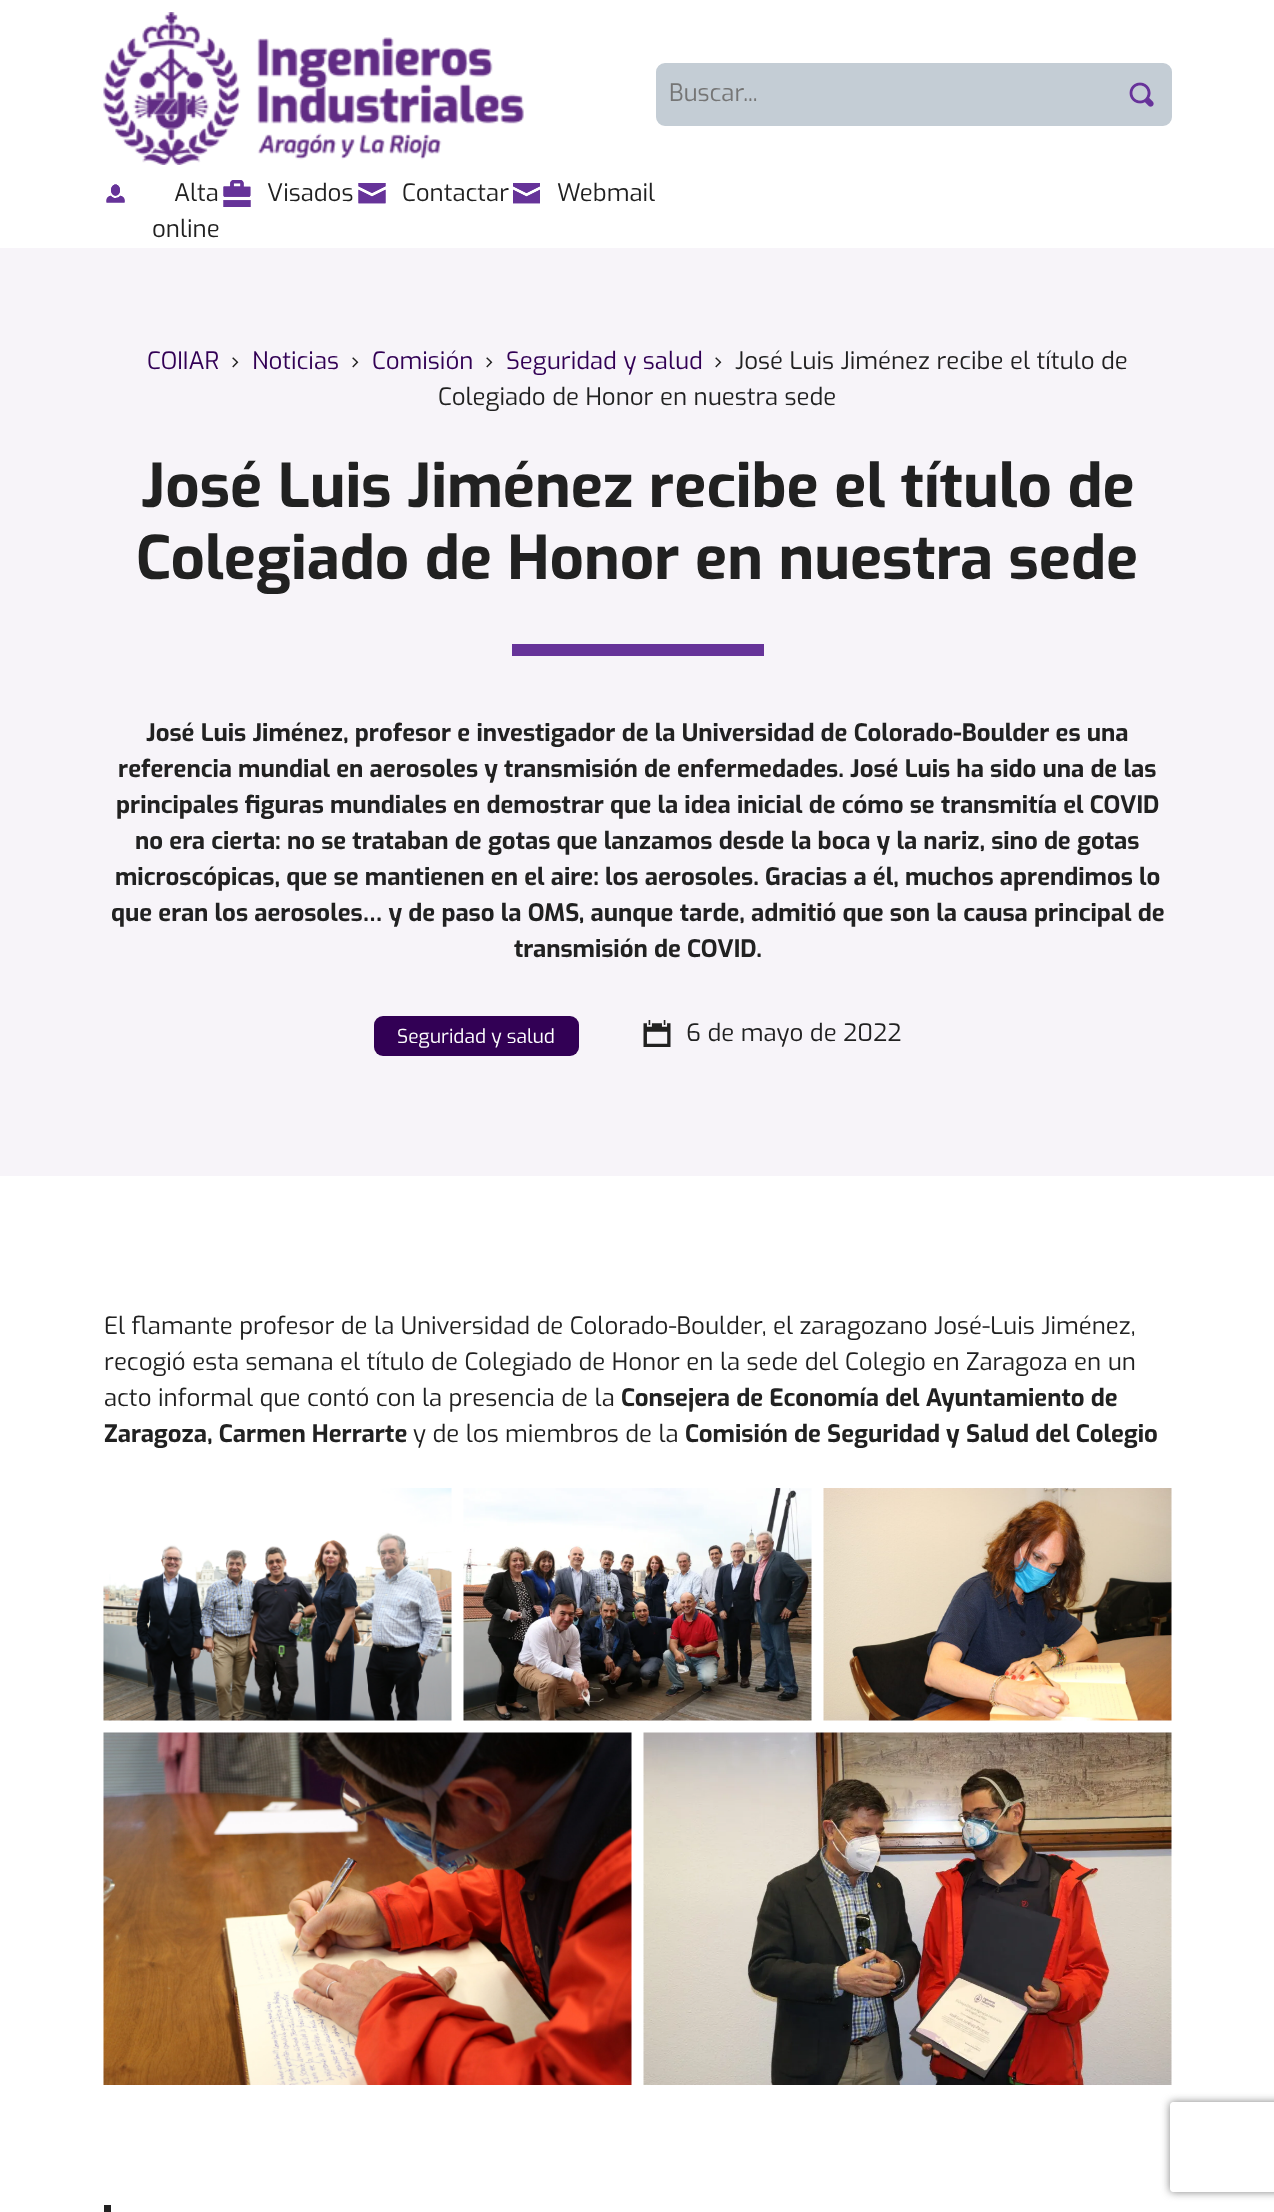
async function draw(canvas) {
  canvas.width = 1274
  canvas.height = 2212
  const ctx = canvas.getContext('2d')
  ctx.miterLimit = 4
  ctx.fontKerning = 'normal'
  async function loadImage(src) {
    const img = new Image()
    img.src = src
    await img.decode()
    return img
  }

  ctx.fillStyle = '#fff'
  ctx.fillRect(0, 0, 1274, 2212)
  ctx.drawImage(await loadImage('image0.png'), 103, 12, 421, 153)
  ctx.fillStyle = '#c4cdd5'
  ctx.beginPath()
  ctx.roundRect(657, 64, 514, 61, 8)
  ctx.fill()
  ctx.strokeStyle = '#c4cdd5'
  ctx.lineWidth = 2
  ctx.stroke()
  ctx.font = '24px Exo'
  ctx.fillStyle = '#757575'
  ctx.fillText('Buscar...', 669, 101)
  ctx.drawImage(await loadImage('image1.png'), 1129, 82, 25, 25)
  ctx.drawImage(await loadImage('image2.png'), 106, 184, 19, 19)
  ctx.fillStyle = '#212121'
  ctx.fillText('Alta', 174, 201)
  ctx.fillText('online', 152, 237)
  ctx.drawImage(await loadImage('image3.png'), 223, 180, 28, 27)
  ctx.fillText('Visados', 267, 201)
  ctx.drawImage(await loadImage('image4.png'), 358, 183, 28, 21)
  ctx.fillText('Contactar', 402, 201)
  ctx.drawImage(await loadImage('image5.png'), 513, 183, 27, 21)
  ctx.fillText('Webmail', 557, 201)
  ctx.fillStyle = '#f7f4f9'
  ctx.fillRect(0, 248, 1274, 928)
  ctx.fillStyle = '#320055'
  ctx.fillText('COIIAR', 147, 369)
  ctx.fillStyle = '#212121'
  ctx.fillText('›', 231, 369)
  ctx.fillStyle = '#320055'
  ctx.fillText('Noticias', 252, 369)
  ctx.fillStyle = '#212121'
  ctx.fillText('›', 351, 369)
  ctx.fillStyle = '#320055'
  ctx.fillText('Comisión', 372, 369)
  ctx.fillStyle = '#212121'
  ctx.fillText('›', 485, 369)
  ctx.fillStyle = '#320055'
  ctx.fillText('Seguridad y salud', 506, 369)
  ctx.fillStyle = '#212121'
  ctx.fillText('›', 714, 369)
  ctx.fillText('José Luis Jiménez recibe el título de', 735, 369)
  ctx.fillText('Colegiado de Honor en nuestra sede', 438, 405)
  ctx.font = 'bold 60px Exo'
  ctx.fillText('José Luis Jiménez recibe el título de', 141, 507)
  ctx.fillText('Colegiado de Honor en nuestra sede', 136, 579)
  ctx.fillStyle = '#639'
  ctx.fillRect(512, 644, 252, 12)
  ctx.font = 'bold 24px Exo'
  ctx.fillStyle = '#212121'
  ctx.fillText('José Luis Jiménez, profesor e investigador de la Universidad de Colorado-Boulder es una', 146, 741)
  ctx.fillText('referencia mundial en aerosoles y transmisión de enfermedades. José Luis ha sido una de las', 118, 777)
  ctx.fillText('principales figuras mundiales en demostrar que la idea inicial de cómo se transmitía el COVID', 116, 813)
  ctx.fillText('no era cierta: no se trataban de gotas que lanzamos desde la boca y la nariz, sino de gotas', 135, 849)
  ctx.fillText('microscópicas, que se mantienen en el aire: los aerosoles. Gracias a él, muchos aprendimos lo', 115, 885)
  ctx.fillText('que eran los aerosoles… y de paso la OMS, aunque tarde, admitió que son la causa principal de', 111, 921)
  ctx.fillText('transmisión de COVID.', 514, 957)
  ctx.fillStyle = '#320055'
  ctx.beginPath()
  ctx.roundRect(374, 1016, 205, 40, 9)
  ctx.fill()
  ctx.font = '19.25px Exo'
  ctx.fillStyle = '#fff'
  ctx.fillText('Seguridad y salud', 397, 1043)
  ctx.drawImage(await loadImage('image6.png'), 643, 1020, 28, 27)
  ctx.font = '24px Exo'
  ctx.fillStyle = '#212121'
  ctx.fillText('6 de mayo de 2022', 686, 1041)
  ctx.fillText('El flamante profesor de la Universidad de Colorado-Boulder, el zaragozano José-Luis Jiménez,', 104, 1334)
  ctx.fillText('recogió esta semana el título de Colegiado de Honor en la sede del Colegio en Zaragoza en un', 104, 1370)
  ctx.fillText('acto informal que contó con la presencia de la', 104, 1406)
  ctx.font = 'bold 24px Exo'
  ctx.fillText('Consejera de Economía del Ayuntamiento de', 621, 1406)
  ctx.fillText('Zaragoza, Carmen Herrarte', 104, 1442)
  ctx.font = '24px Exo'
  ctx.fillText('y de los miembros de la', 413, 1442)
  ctx.font = 'bold 24px Exo'
  ctx.fillText('Comisión de Seguridad y Salud del Colegio', 685, 1442)
  ctx.drawImage(await loadImage('image7.png'), 103, 1488, 349, 233)
  ctx.drawImage(await loadImage('image8.png'), 463, 1488, 349, 233)
  ctx.drawImage(await loadImage('image9.png'), 823, 1488, 349, 233)
  ctx.drawImage(await loadImage('image10.png'), 103, 1732, 529, 353)
  ctx.drawImage(await loadImage('image11.png'), 643, 1732, 529, 353)
  ctx.fillRect(104, 2205, 7, 7)
  ctx.save()
  ctx.beginPath()
  ctx.moveTo(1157, 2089)
  ctx.lineTo(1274, 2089)
  ctx.lineTo(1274, 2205)
  ctx.lineTo(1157, 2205)
  ctx.closePath()
  ctx.moveTo(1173, 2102)
  ctx.lineTo(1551, 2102)
  ctx.bezierCurveTo(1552.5, 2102, 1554, 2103.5, 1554, 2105)
  ctx.lineTo(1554, 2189)
  ctx.bezierCurveTo(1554, 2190.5, 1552.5, 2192, 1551, 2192)
  ctx.lineTo(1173, 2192)
  ctx.bezierCurveTo(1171.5, 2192, 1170, 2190.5, 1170, 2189)
  ctx.lineTo(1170, 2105)
  ctx.bezierCurveTo(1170, 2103.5, 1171.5, 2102, 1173, 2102)
  ctx.closePath()
  ctx.clip('evenodd')
  ctx.fillStyle = '#808080'
  ctx.filter = 'blur(4px)'
  ctx.beginPath()
  ctx.roundRect(1170, 2102, 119, 90, 3)
  ctx.fill()
  ctx.filter = 'none'
  ctx.restore()
}

draw(document.querySelector('canvas'))
